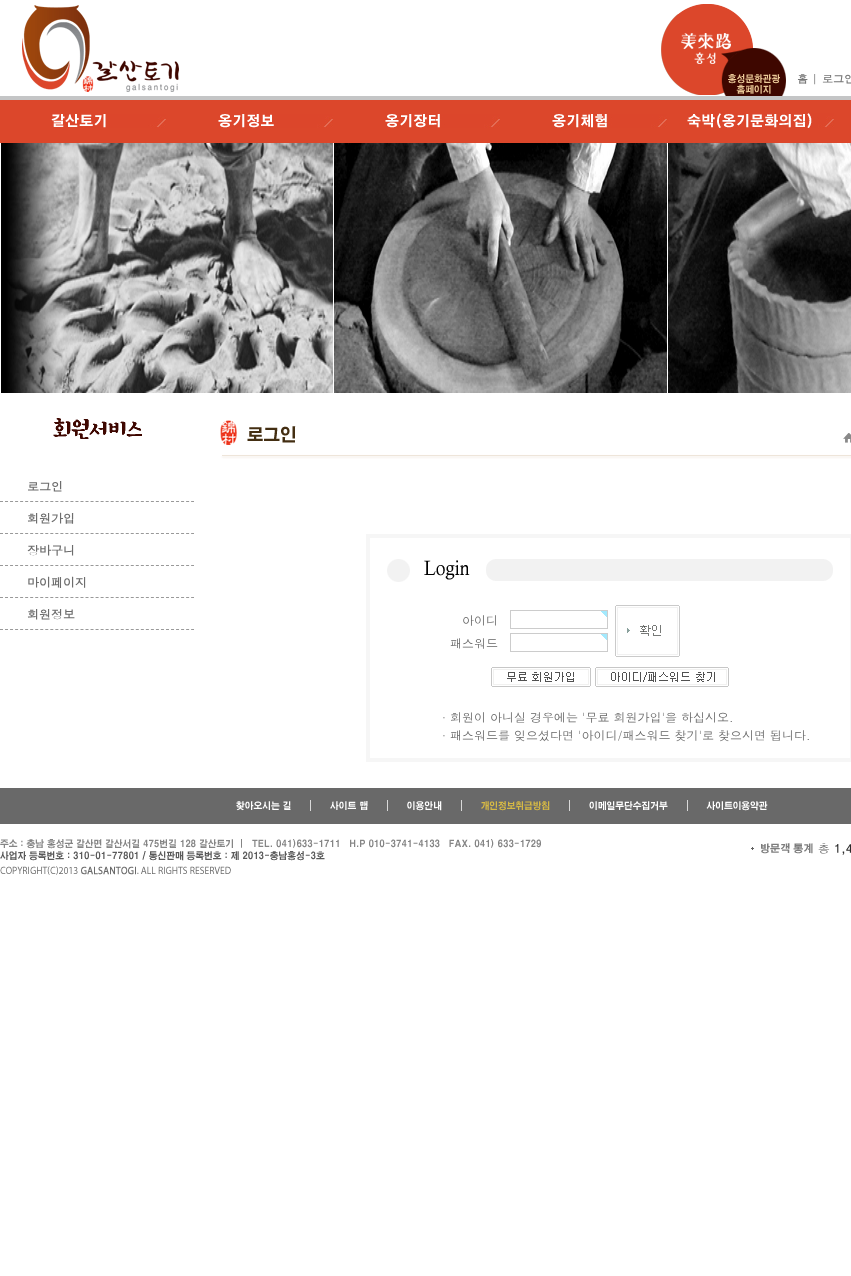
async function draw(canvas) {
  canvas.width = 851
  canvas.height = 1276
  const ctx = canvas.getContext('2d')
  ctx.miterLimit = 4
  ctx.fontKerning = 'normal'
  async function loadImage(src) {
    const img = new Image()
    img.src = src
    await img.decode()
    return img
  }

  ctx.fillStyle = '#fff'
  ctx.fillRect(0, 0, 851, 1276)
  ctx.drawImage(await loadImage('image0.png'), 0, 96, 851, 47)
  ctx.drawImage(await loadImage('image1.png'), 22, 5, 157, 87)
  ctx.drawImage(await loadImage('image2.png'), 661, 4, 92, 91)
  ctx.drawImage(await loadImage('image3.png'), 721, 48, 65, 48)
  ctx.font = 'bold 11px Dotum'
  ctx.fillStyle = '#767676'
  ctx.fillText('홈', 797, 83)
  ctx.font = '11px Dotum'
  ctx.fillStyle = '#666'
  ctx.fillText('|', 812, 83)
  ctx.font = 'bold 11px Dotum'
  ctx.fillStyle = '#767676'
  ctx.fillText('로그인', 822, 83)
  ctx.drawImage(await loadImage('image4.png'), 51, 114, 115, 14)
  ctx.drawImage(await loadImage('image5.png'), 218, 114, 115, 14)
  ctx.drawImage(await loadImage('image6.png'), 385, 114, 115, 14)
  ctx.drawImage(await loadImage('image7.png'), 552, 114, 115, 14)
  ctx.drawImage(await loadImage('image8.png'), 687, 113, 147, 15)
  ctx.drawImage(await loadImage('image9.png'), 0, 143, 851, 250)
  ctx.drawImage(await loadImage('image10.png'), 53, 418, 89, 21)
  ctx.beginPath()
  ctx.moveTo(0, 501.5)
  ctx.lineTo(194, 501.5)
  ctx.strokeStyle = '#999'
  ctx.setLineDash([3, 2.03])
  ctx.stroke()
  ctx.font = 'bold 12px Dotum'
  ctx.fillStyle = '#6d6d6d'
  ctx.fillText('로그인', 27, 491)
  ctx.beginPath()
  ctx.moveTo(0, 533.5)
  ctx.lineTo(194, 533.5)
  ctx.stroke()
  ctx.fillText('회원가입', 27, 523)
  ctx.beginPath()
  ctx.moveTo(0, 565.5)
  ctx.lineTo(194, 565.5)
  ctx.stroke()
  ctx.fillText('장바구니', 27, 555)
  ctx.beginPath()
  ctx.moveTo(0, 597.5)
  ctx.lineTo(194, 597.5)
  ctx.stroke()
  ctx.fillText('마이페이지', 27, 587)
  ctx.beginPath()
  ctx.moveTo(0, 629.5)
  ctx.lineTo(194, 629.5)
  ctx.stroke()
  ctx.fillText('회원정보', 27, 619)
  ctx.drawImage(await loadImage('image11.png'), 220, 420, 631, 39)
  ctx.drawImage(await loadImage('image12.png'), 247, 426, 49, 17)
  ctx.drawImage(await loadImage('image13.png'), 843, 433, 8, 10)
  ctx.fillStyle = '#f6f6f6'
  ctx.fillRect(366, 534, 485, 228)
  ctx.fillStyle = '#fff'
  ctx.fillRect(370, 538, 480, 220)
  ctx.drawImage(await loadImage('image14.png'), 387, 559, 446, 23)
  ctx.font = '12px Dotum'
  ctx.fillStyle = '#666'
  ctx.fillText('아이디', 462, 625)
  ctx.drawImage(await loadImage('image15.png'), 601, 611, 6, 6)
  ctx.strokeStyle = '#ccc'
  ctx.setLineDash([])
  ctx.strokeRect(510.5, 610.5, 97, 18)
  ctx.fillText('패스워드', 450, 648)
  ctx.drawImage(await loadImage('image15.png'), 601, 634, 6, 6)
  ctx.strokeRect(510.5, 633.5, 97, 18)
  ctx.drawImage(await loadImage('image16.png'), 615, 605, 65, 52)
  ctx.drawImage(await loadImage('image17.png'), 491, 667, 100, 20)
  ctx.drawImage(await loadImage('image18.png'), 595, 667, 134, 20)
  ctx.fillText('· 회원이 아니실 경우에는 \'무료 회원가입\'을 하십시오.', 442, 722)
  ctx.fillText('· 패스워드를 잊으셨다면 \'아이디/패스워드 찾기\'로 찾으시면 됩니다.', 442, 740)
  ctx.fillStyle = '#696969'
  ctx.fillRect(0, 788, 851, 36)
  ctx.fillStyle = '#d9d9d9'
  ctx.fillRect(310, 800, 1, 11)
  ctx.drawImage(await loadImage('image19.png'), 236, 801, 55, 10)
  ctx.fillRect(387, 800, 1, 11)
  ctx.drawImage(await loadImage('image20.png'), 330, 801, 38, 9)
  ctx.fillRect(461, 800, 1, 11)
  ctx.drawImage(await loadImage('image21.png'), 407, 801, 35, 10)
  ctx.fillRect(569, 800, 1, 11)
  ctx.drawImage(await loadImage('image22.png'), 481, 801, 69, 10)
  ctx.fillRect(687, 800, 1, 11)
  ctx.drawImage(await loadImage('image23.png'), 589, 801, 79, 10)
  ctx.drawImage(await loadImage('image24.png'), 706, 801, 62, 10)
  ctx.drawImage(await loadImage('image25.png'), 0, 839, 541, 22)
  ctx.drawImage(await loadImage('image26.png'), 0, 866, 231, 9)
  ctx.drawImage(await loadImage('image27.png'), 751, 843, 62, 11)
  ctx.fillStyle = '#666'
  ctx.fillText('총', 818, 853)
  ctx.font = 'bold 12px Dotum'
  ctx.fillStyle = '#2c2c2c'
  ctx.fillText('1,4', 834, 853)
}

draw(document.querySelector('canvas'))
